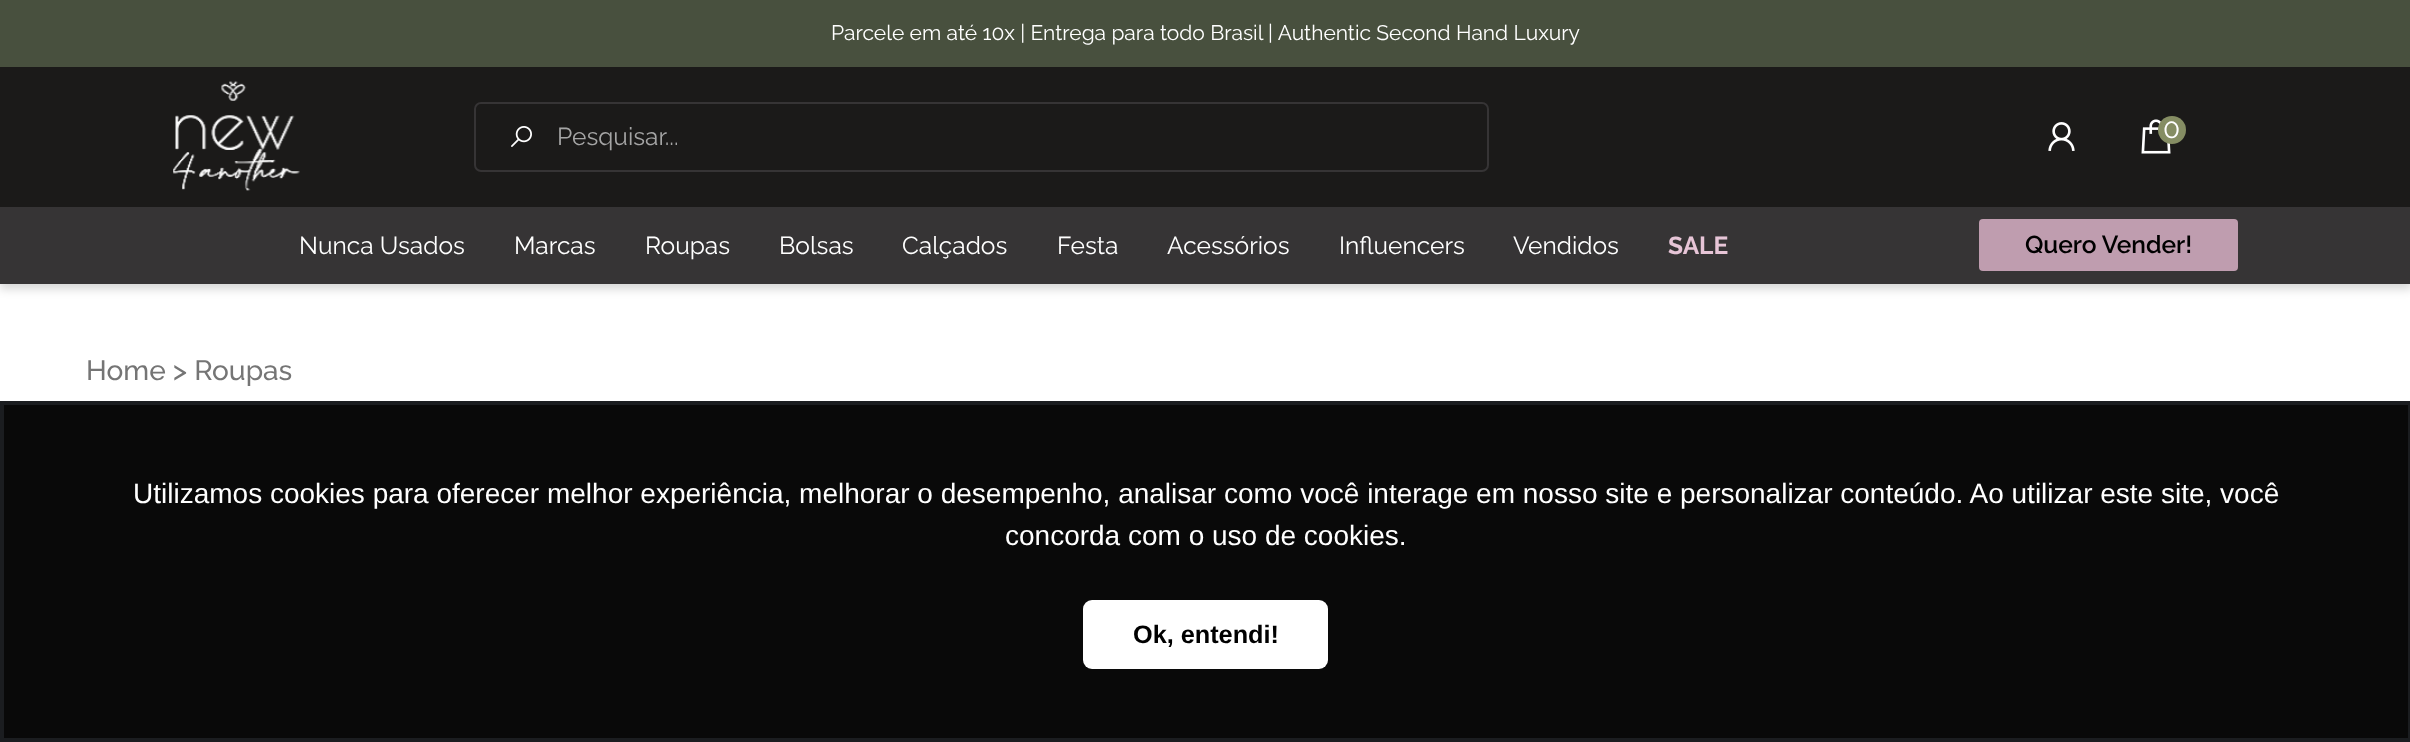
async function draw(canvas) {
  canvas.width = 2410
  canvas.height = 742
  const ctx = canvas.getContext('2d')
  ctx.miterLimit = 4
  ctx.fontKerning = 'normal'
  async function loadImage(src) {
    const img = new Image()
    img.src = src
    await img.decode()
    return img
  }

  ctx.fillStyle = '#fff'
  ctx.fillRect(0, 0, 2410, 742)
  ctx.fillStyle = '#00000029'
  ctx.filter = 'blur(5px)'
  ctx.beginPath()
  ctx.rect(0, 5, 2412, 284)
  ctx.fill()
  ctx.filter = 'none'
  ctx.fillStyle = '#48503e'
  ctx.fillRect(0, 0, 2410, 67)
  ctx.font = '21px Raleway'
  ctx.fillStyle = '#fff'
  ctx.fillText('Parcele em até 10x | Entrega para todo Brasil | Authentic Second Hand Luxury', 831, 40)
  ctx.fillStyle = '#1b1a19'
  ctx.fillRect(0, 67, 2410, 140)
  ctx.drawImage(await loadImage('image0.png'), 173, 81, 127, 110)
  ctx.beginPath()
  ctx.roundRect(475, 103, 1013, 68, 6)
  ctx.strokeStyle = '#363435'
  ctx.lineWidth = 2
  ctx.stroke()
  ctx.drawImage(await loadImage('image1.png'), 511, 126, 21, 21)
  ctx.font = '24.5px Raleway'
  ctx.fillStyle = '#a5a5a5'
  ctx.fillText('Pesquisar...', 557, 145)
  ctx.drawImage(await loadImage('image2.png'), 2048, 122, 27, 29)
  ctx.drawImage(await loadImage('image3.png'), 2141, 119, 30, 35)
  ctx.fillStyle = '#858d63'
  ctx.beginPath()
  ctx.arc(2172, 130, 14, 0, 2 * Math.PI)
  ctx.fill()
  ctx.font = '28px Raleway'
  ctx.fillStyle = '#fff'
  ctx.fillText('0', 2163, 138)
  ctx.fillStyle = '#363435'
  ctx.fillRect(0, 207, 2410, 77)
  ctx.font = '24.5px Raleway'
  ctx.fillStyle = '#fff'
  ctx.fillText('Nunca Usados', 299, 254)
  ctx.fillText('Marcas', 514, 254)
  ctx.fillText('Roupas', 645, 254)
  ctx.fillText('Bolsas', 779, 254)
  ctx.fillText('Calçados', 902, 254)
  ctx.fillText('Festa', 1057, 254)
  ctx.fillText('Acessórios', 1167, 254)
  ctx.fillText('Influencers', 1339, 254)
  ctx.fillText('Vendidos', 1513, 254)
  ctx.font = 'bold 24.5px Raleway'
  ctx.fillStyle = '#e7c5d7'
  ctx.fillText('SALE', 1668, 254)
  ctx.fillStyle = '#bf9daf'
  ctx.beginPath()
  ctx.roundRect(1979, 219, 259, 52, 4)
  ctx.fill()
  ctx.font = '600 24.5px Raleway'
  ctx.fillStyle = '#000'
  ctx.fillText('Quero Vender!', 2025, 253)
  ctx.font = '500 28px Raleway'
  ctx.fillStyle = '#757575'
  ctx.fillText('Home > Roupas', 86, 380)
  ctx.fillStyle = '#090909'
  ctx.beginPath()
  ctx.rect(2, 403, 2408, 337)
  ctx.fill()
  ctx.strokeStyle = '#1b1d20'
  ctx.lineWidth = 4
  ctx.stroke()
  ctx.font = '28px Liberation Sans'
  ctx.fillStyle = '#fff'
  ctx.fillText('Utilizamos cookies para oferecer melhor experiência, melhorar o desempenho, analisar como você interage em nosso site e personalizar conteúdo. Ao utilizar este site, você', 133, 503)
  ctx.fillText('concorda com o uso de cookies.', 1005, 545)
  ctx.beginPath()
  ctx.roundRect(1083, 600, 245, 69, 9)
  ctx.fill()
  ctx.font = 'bold 25.25px Liberation Sans'
  ctx.fillStyle = '#000'
  ctx.fillText('Ok, entendi!', 1133, 643)
}

draw(document.querySelector('canvas'))
